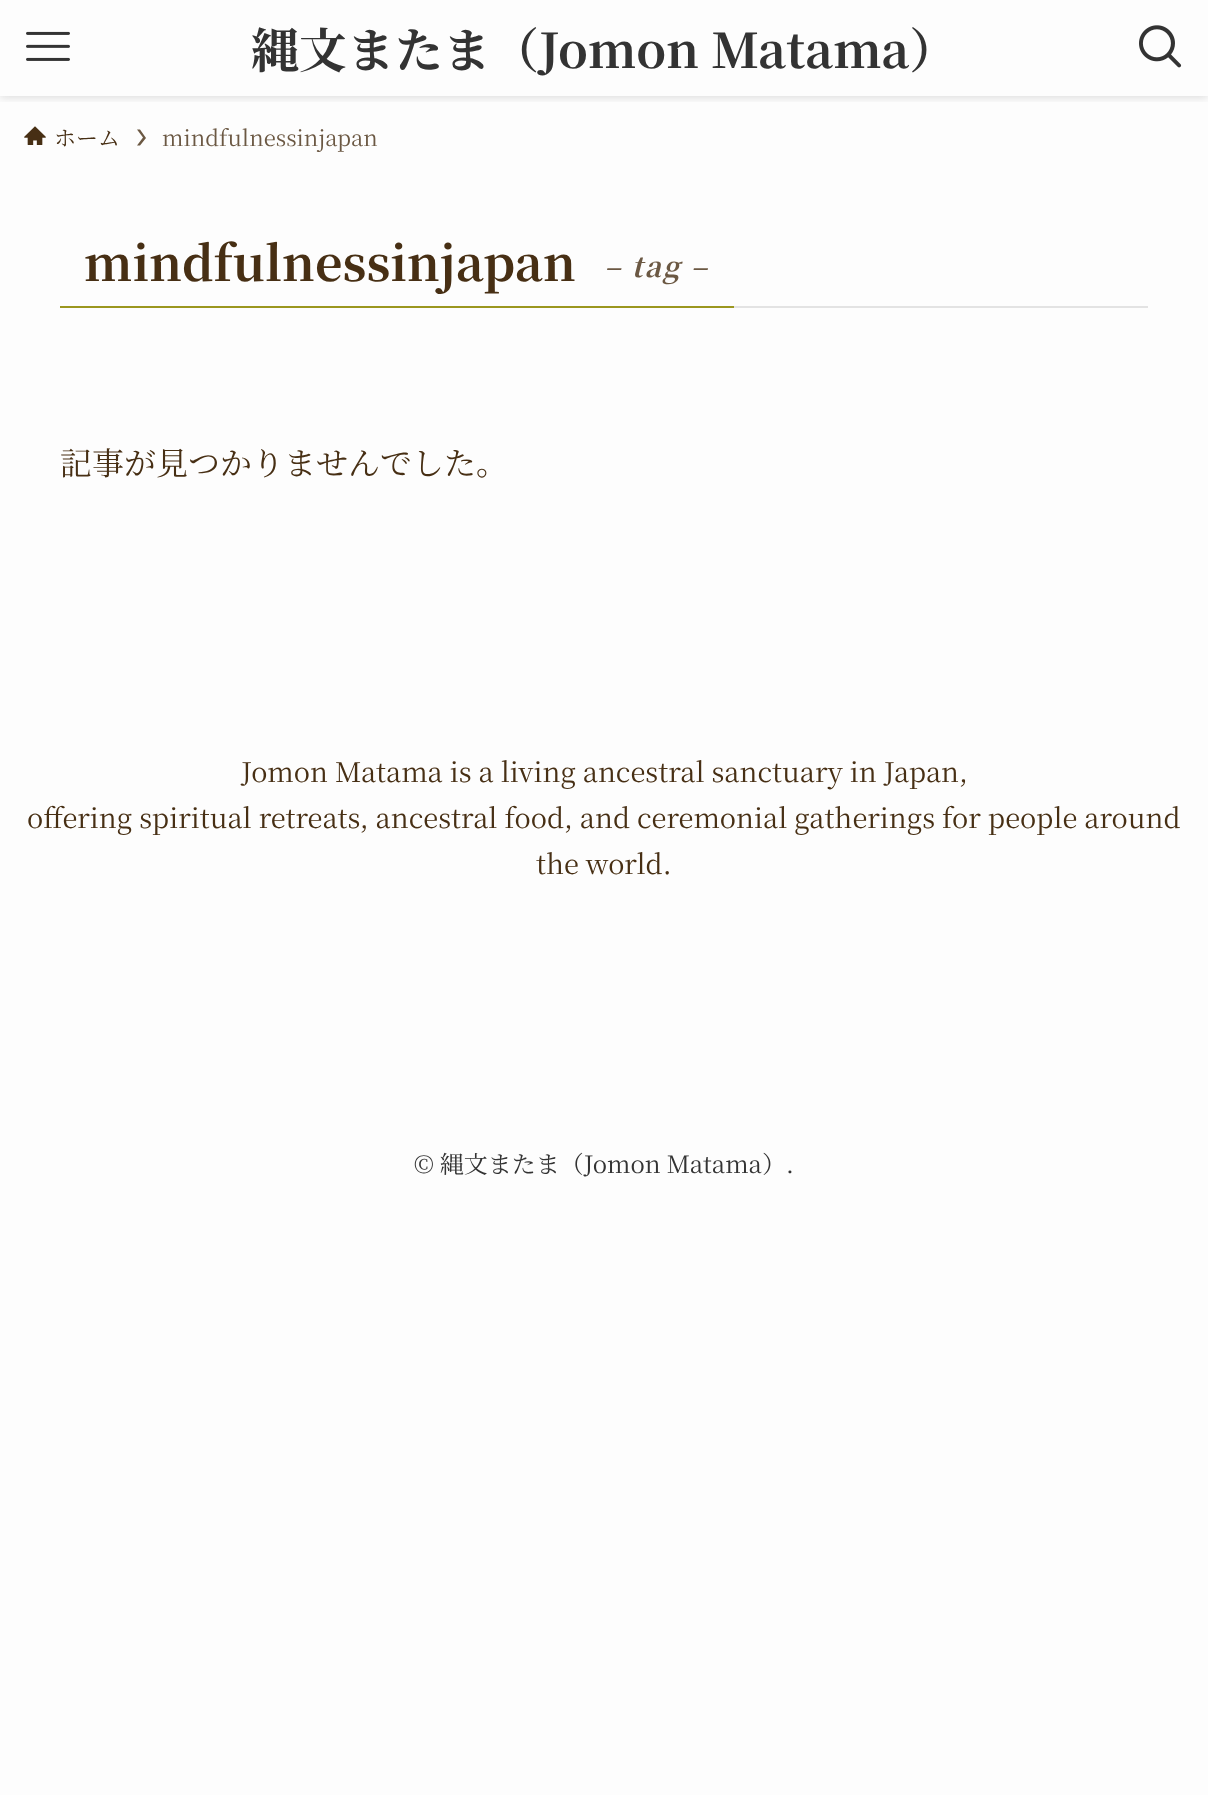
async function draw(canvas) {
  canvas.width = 1208
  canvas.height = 1795
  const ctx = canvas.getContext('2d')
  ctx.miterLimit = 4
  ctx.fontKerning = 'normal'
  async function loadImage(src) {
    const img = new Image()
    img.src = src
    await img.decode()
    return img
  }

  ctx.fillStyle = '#fdfdfd'
  ctx.fillRect(0, 0, 1208, 1795)
  ctx.save()
  ctx.beginPath()
  ctx.rect(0, 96, 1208, 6)
  ctx.clip()
  ctx.fillStyle = '#0000001f'
  ctx.filter = 'blur(4px)'
  ctx.beginPath()
  ctx.rect(0, 2, 1208, 96)
  ctx.fill()
  ctx.filter = 'none'
  ctx.restore()
  ctx.drawImage(await loadImage('image0.png'), 26, 31, 44, 30)
  ctx.font = 'bold 48px Noto Serif JP'
  ctx.fillStyle = '#333'
  ctx.fillText('縄文またま（Jomon Matama）', 251, 68)
  ctx.drawImage(await loadImage('image1.png'), 1139, 25, 43, 43)
  ctx.drawImage(await loadImage('image2.png'), 24, 126, 22, 19)
  ctx.font = '22px Noto Serif JP'
  ctx.fillStyle = '#472f14'
  ctx.fillText('ホーム', 54, 146)
  ctx.fillStyle = '#6b5843'
  ctx.beginPath()
  ctx.moveTo(140, 129.5)
  ctx.lineTo(137, 129.5)
  ctx.lineTo(143, 137.5)
  ctx.lineTo(137, 145.5)
  ctx.lineTo(140, 145.5)
  ctx.lineTo(146, 138)
  ctx.closePath()
  ctx.fill()
  ctx.fillText('mindfulnessinjapan', 162, 146)
  ctx.fillStyle = '#e3e3e3'
  ctx.fillRect(734, 306, 414, 2)
  ctx.fillStyle = '#9b971f'
  ctx.fillRect(60, 306, 674, 2)
  ctx.font = 'bold 48px Noto Serif JP'
  ctx.fillStyle = '#472f14'
  ctx.fillText('mindfulnessinjapan', 84, 281)
  ctx.letterSpacing = '2px'
  ctx.font = 'italic bold 28px Noto Serif JP'
  ctx.fillStyle = '#6b5843'
  ctx.fillText('– tag –', 604, 277)
  ctx.letterSpacing = '0px'
  ctx.font = '32px Noto Serif JP'
  ctx.fillStyle = '#472f14'
  ctx.fillText('記事が見つかりませんでした。', 60, 475)
  ctx.font = '27.2px Noto Serif JP'
  ctx.fillText('Jomon Matama is a living ancestral sanctuary in Japan,', 241, 782)
  ctx.fillText('offering spiritual retreats, ancestral food, and ceremonial gatherings for people around', 27, 828)
  ctx.fillText('the world.', 536, 874)
  ctx.font = '24px Noto Serif JP'
  ctx.fillStyle = '#333'
  ctx.fillText('© 縄文またま（Jomon Matama）.', 414, 1173)
}

draw(document.querySelector('canvas'))
